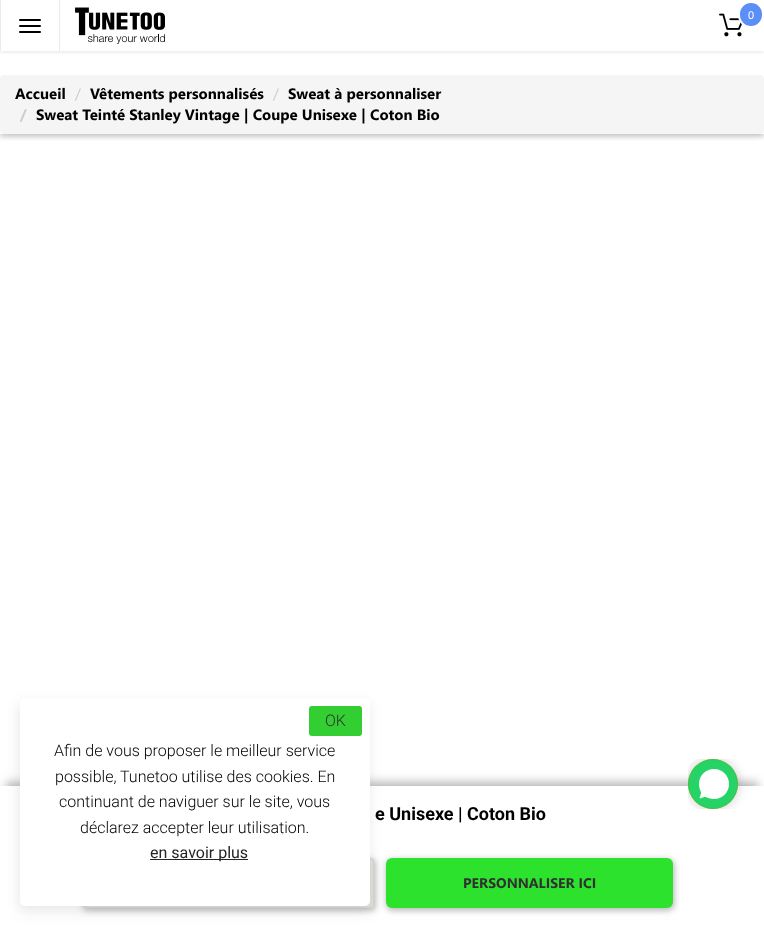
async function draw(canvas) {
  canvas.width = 764
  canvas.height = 926
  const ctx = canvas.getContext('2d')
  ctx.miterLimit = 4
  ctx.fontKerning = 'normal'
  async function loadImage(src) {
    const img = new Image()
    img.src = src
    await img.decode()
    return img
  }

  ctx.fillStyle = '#fff'
  ctx.fillRect(0, 0, 764, 926)
  ctx.save()
  ctx.beginPath()
  ctx.rect(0, 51, 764, 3)
  ctx.clip()
  ctx.fillStyle = '#0000001a'
  ctx.filter = 'blur(2.5px)'
  ctx.beginPath()
  ctx.rect(0, 1, 764, 51)
  ctx.fill()
  ctx.filter = 'none'
  ctx.restore()
  ctx.save()
  ctx.beginPath()
  ctx.rect(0, 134, 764, 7)
  ctx.clip()
  ctx.fillStyle = '#0000001f'
  ctx.filter = 'blur(5px)'
  ctx.beginPath()
  ctx.rect(0, 2, 764, 134)
  ctx.fill()
  ctx.filter = 'none'
  ctx.restore()
  ctx.save()
  ctx.beginPath()
  ctx.rect(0, 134, 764, 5)
  ctx.clip()
  ctx.fillStyle = '#00000029'
  ctx.filter = 'blur(2.5px)'
  ctx.beginPath()
  ctx.rect(0, 2, 764, 134)
  ctx.fill()
  ctx.filter = 'none'
  ctx.restore()
  ctx.fillStyle = '#ebebeb'
  ctx.fillRect(59, 0, 1, 51)
  ctx.fillRect(0, 0, 1, 51)
  ctx.fillStyle = '#000'
  ctx.beginPath()
  ctx.roundRect(19, 19, 22, 2, 1)
  ctx.fill()
  ctx.beginPath()
  ctx.roundRect(19, 25, 22, 2, 1)
  ctx.fill()
  ctx.beginPath()
  ctx.roundRect(19, 31, 22, 2, 1)
  ctx.fill()
  ctx.drawImage(await loadImage('image0.png'), 75, 7, 90, 38)
  ctx.drawImage(await loadImage('image1.png'), 719, 13, 23, 24)
  ctx.fillStyle = '#5b8ef6'
  ctx.beginPath()
  ctx.roundRect(739, 2, 24, 25, 12)
  ctx.fill()
  ctx.strokeStyle = '#fff'
  ctx.lineWidth = 2
  ctx.stroke()
  ctx.font = '11px Liberation Sans'
  ctx.fillStyle = '#fff'
  ctx.fillText('0', 748, 19)
  ctx.fillStyle = '#f5f5f5'
  ctx.beginPath()
  ctx.roundRect(0, 75, 764, 59, 4)
  ctx.fill()
  ctx.font = 'bold 15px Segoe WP'
  ctx.fillStyle = '#000'
  ctx.fillText('Accueil', 15, 99)
  ctx.font = '15px Segoe UI'
  ctx.fillStyle = '#ccc'
  ctx.fillText('/', 75, 99)
  ctx.font = 'bold 15px Segoe WP'
  ctx.fillStyle = '#000'
  ctx.fillText('Vêtements personnalisés', 90, 99)
  ctx.font = '15px Segoe UI'
  ctx.fillStyle = '#ccc'
  ctx.fillText('/', 273, 99)
  ctx.font = 'bold 15px Segoe WP'
  ctx.fillStyle = '#000'
  ctx.fillText('Sweat à personnaliser', 288, 99)
  ctx.fillStyle = '#ccc'
  ctx.fillText('/', 20, 120)
  ctx.fillStyle = '#000'
  ctx.fillText('Sweat Teinté Stanley Vintage | Coupe Unisexe | Coton Bio', 36, 120)
  ctx.fillStyle = '#70707080'
  ctx.filter = 'blur(5px)'
  ctx.beginPath()
  ctx.rect(6, 782, 752, 128)
  ctx.fill()
  ctx.filter = 'none'
  ctx.fillStyle = '#fff'
  ctx.fillRect(0, 786, 764, 133)
  ctx.font = 'bold 18px Roboto'
  ctx.fillStyle = '#000'
  ctx.fillText('e Unisexe | Coton Bio', 375, 820)
  ctx.fillStyle = '#0000001f'
  ctx.filter = 'blur(5px)'
  ctx.beginPath()
  ctx.roundRect(83, 860, 291, 50, 3)
  ctx.fill()
  ctx.filter = 'none'
  ctx.fillStyle = '#00000029'
  ctx.filter = 'blur(2.5px)'
  ctx.beginPath()
  ctx.roundRect(83, 859, 293, 52, 4)
  ctx.fill()
  ctx.filter = 'none'
  ctx.fillStyle = '#e0ded9'
  ctx.beginPath()
  ctx.roundRect(83, 858, 291, 50, 3)
  ctx.fill()
  ctx.beginPath()
  ctx.roundRect(83.5, 858.5, 290, 49, 2.5)
  ctx.strokeStyle = '#cacaca80'
  ctx.lineWidth = 1
  ctx.stroke()
  ctx.fillStyle = '#0000001f'
  ctx.filter = 'blur(5px)'
  ctx.beginPath()
  ctx.roundRect(386, 860, 287, 50, 6)
  ctx.fill()
  ctx.filter = 'none'
  ctx.fillStyle = '#00000029'
  ctx.filter = 'blur(2.5px)'
  ctx.beginPath()
  ctx.roundRect(386, 859, 289, 52, 7)
  ctx.fill()
  ctx.filter = 'none'
  ctx.fillStyle = '#2de22d'
  ctx.beginPath()
  ctx.roundRect(386, 858, 287, 50, 6)
  ctx.fill()
  ctx.font = 'bold 14px Segoe WP'
  ctx.fillStyle = '#303030'
  ctx.fillText('PERSONNALISER ICI', 463, 888)
  ctx.fillStyle = '#9c9c9c3d'
  ctx.filter = 'blur(6.5px)'
  ctx.beginPath()
  ctx.roundRect(19, 703, 350, 208, 5)
  ctx.fill()
  ctx.filter = 'none'
  ctx.fillStyle = '#fff'
  ctx.beginPath()
  ctx.roundRect(20, 698, 350, 208, 5)
  ctx.fill()
  ctx.fillStyle = '#32ce32'
  ctx.beginPath()
  ctx.roundRect(309, 706, 53, 30, 3)
  ctx.fill()
  ctx.font = '300 16px Roboto'
  ctx.fillStyle = '#303030'
  ctx.fillText('OK', 325, 726)
  ctx.fillStyle = '#000'
  ctx.fillText('Afin de vous proposer le meilleur service', 54, 756)
  ctx.fillText('possible, Tunetoo utilise des cookies. En', 55, 782)
  ctx.fillText('continuant de naviguer sur le site, vous', 59, 807)
  ctx.fillText('déclarez accepter leur utilisation.', 80, 833)
  ctx.fillStyle = '#242424'
  ctx.fillRect(150, 859, 98, 1)
  ctx.font = '16px Roboto'
  ctx.fillText('en savoir plus', 150, 858)
  ctx.save()
  ctx.beginPath()
  ctx.roundRect(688, 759, 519, 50, 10)
  ctx.clip()
  ctx.fillStyle = '#00000033'
  ctx.filter = 'blur(6px)'
  ctx.beginPath()
  ctx.roundRect(688, 759, 50, 50, 25)
  ctx.fill()
  ctx.filter = 'none'
  ctx.restore()
  ctx.fillStyle = '#25d366'
  ctx.beginPath()
  ctx.arc(713, 784, 25, 0, 2 * Math.PI)
  ctx.fill()
  ctx.beginPath()
  ctx.arc(713, 784, 24.5, 0, 2 * Math.PI)
  ctx.strokeStyle = '#69b01c8f'
  ctx.stroke()
  ctx.drawImage(await loadImage('image2.png'), 699, 769, 30, 30)
}

draw(document.querySelector('canvas'))
